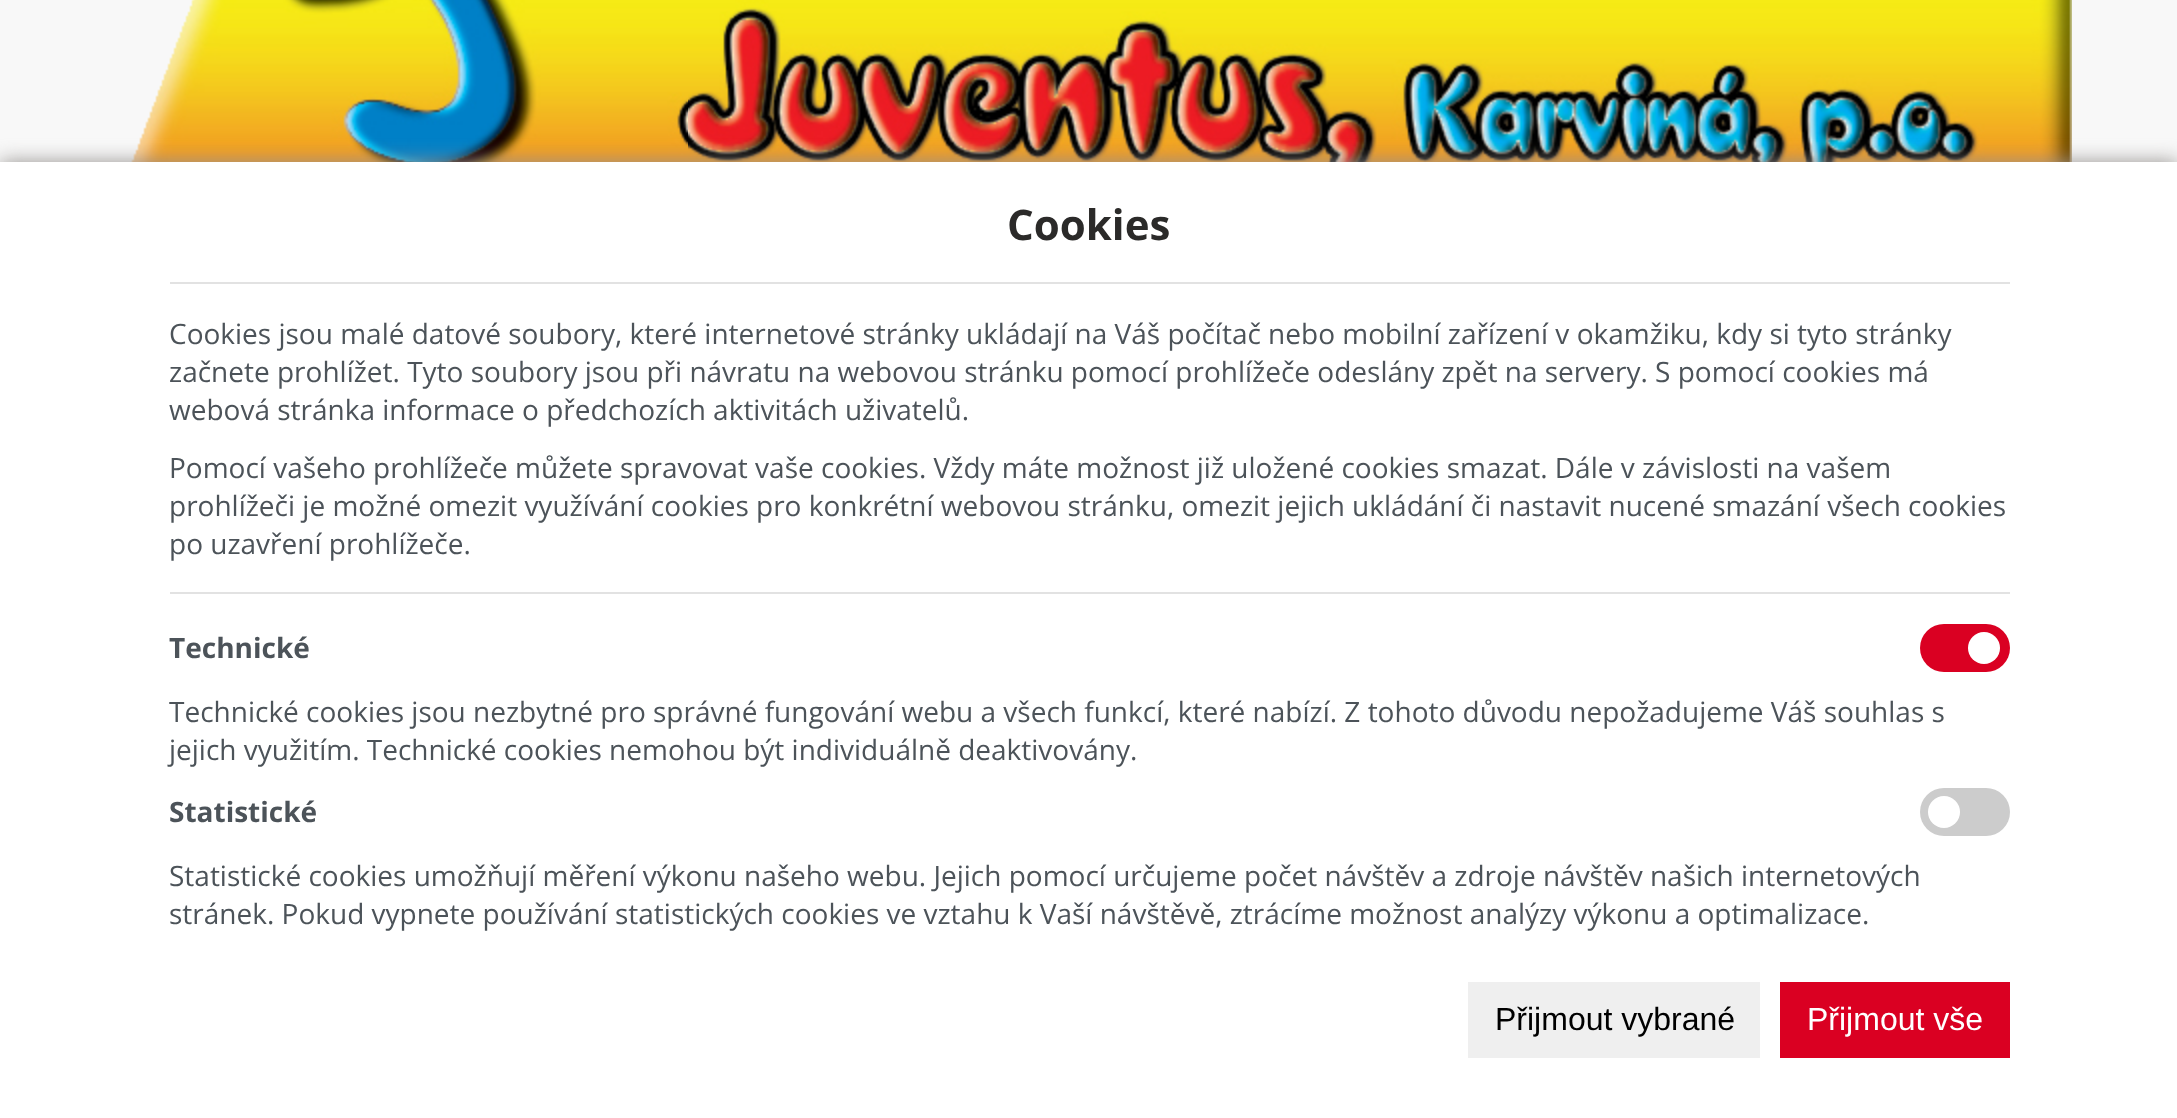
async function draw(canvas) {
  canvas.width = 2177
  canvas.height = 1118
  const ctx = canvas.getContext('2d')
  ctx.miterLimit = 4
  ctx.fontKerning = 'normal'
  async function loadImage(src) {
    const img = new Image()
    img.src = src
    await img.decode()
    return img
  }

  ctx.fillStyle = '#f8f8f8'
  ctx.fillRect(0, 0, 2177, 1118)
  ctx.drawImage(await loadImage('image0.png'), 131, 0, 557, 162)
  ctx.drawImage(await loadImage('image1.png'), 688, 0, 1384, 162)
  ctx.fillStyle = '#95928f'
  ctx.filter = 'blur(10px)'
  ctx.beginPath()
  ctx.rect(0, 162, 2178, 956)
  ctx.fill()
  ctx.filter = 'none'
  ctx.fillStyle = '#fff'
  ctx.fillRect(0, 162, 2177, 956)
  ctx.font = 'bold 42px Open Sans'
  ctx.fillStyle = '#2b2a29'
  ctx.fillText('Cookies', 1007, 240)
  ctx.fillStyle = '#e2e2e2'
  ctx.fillRect(170, 282, 1840, 2)
  ctx.font = '28px Open Sans'
  ctx.fillStyle = '#4c5359'
  ctx.fillText('Cookies jsou malé datové soubory, které internetové stránky ukládají na Váš počítač nebo mobilní zařízení v okamžiku, kdy si tyto stránky', 169, 344)
  ctx.fillText('začnete prohlížet. Tyto soubory jsou při návratu na webovou stránku pomocí prohlížeče odeslány zpět na servery. S pomocí cookies má', 169, 382)
  ctx.fillText('webová stránka informace o předchozích aktivitách uživatelů.', 169, 420)
  ctx.fillText('Pomocí vašeho prohlížeče můžete spravovat vaše cookies. Vždy máte možnost již uložené cookies smazat. Dále v závislosti na vašem', 169, 478)
  ctx.fillText('prohlížeči je možné omezit využívání cookies pro konkrétní webovou stránku, omezit jejich ukládání či nastavit nucené smazání všech cookies', 169, 516)
  ctx.fillText('po uzavření prohlížeče.', 169, 554)
  ctx.fillStyle = '#e2e2e2'
  ctx.fillRect(170, 592, 1840, 2)
  ctx.font = 'bold 28px Open Sans'
  ctx.fillStyle = '#4c5359'
  ctx.fillText('Technické', 169, 658)
  ctx.fillStyle = '#da0022'
  ctx.beginPath()
  ctx.roundRect(1920, 624, 90, 48, 24)
  ctx.fill()
  ctx.fillStyle = '#fff'
  ctx.beginPath()
  ctx.arc(1984, 648, 16, 0, 2 * Math.PI)
  ctx.fill()
  ctx.font = '28px Open Sans'
  ctx.fillStyle = '#4c5359'
  ctx.fillText('Technické cookies jsou nezbytné pro správné fungování webu a všech funkcí, které nabízí. Z tohoto důvodu nepožadujeme Váš souhlas s', 169, 722)
  ctx.fillText('jejich využitím. Technické cookies nemohou být individuálně deaktivovány.', 169, 760)
  ctx.font = 'bold 28px Open Sans'
  ctx.fillText('Statistické', 169, 822)
  ctx.fillStyle = '#ccc'
  ctx.beginPath()
  ctx.roundRect(1920, 788, 90, 48, 24)
  ctx.fill()
  ctx.fillStyle = '#fff'
  ctx.beginPath()
  ctx.arc(1944, 812, 16, 0, 2 * Math.PI)
  ctx.fill()
  ctx.font = '28px Open Sans'
  ctx.fillStyle = '#4c5359'
  ctx.fillText('Statistické cookies umožňují měření výkonu našeho webu. Jejich pomocí určujeme počet návštěv a zdroje návštěv našich internetových', 169, 886)
  ctx.fillText('stránek. Pokud vypnete používání statistických cookies ve vztahu k Vaší návštěvě, ztrácíme možnost analýzy výkonu a optimalizace.', 169, 924)
  ctx.fillStyle = '#efefef'
  ctx.fillRect(1468, 982, 292, 76)
  ctx.font = '32px Liberation Sans'
  ctx.fillStyle = '#000'
  ctx.fillText('Přijmout vybrané', 1495, 1030)
  ctx.fillStyle = '#da0022'
  ctx.fillRect(1780, 982, 230, 76)
  ctx.fillStyle = '#fff'
  ctx.fillText('Přijmout vše', 1807, 1030)
}

draw(document.querySelector('canvas'))
